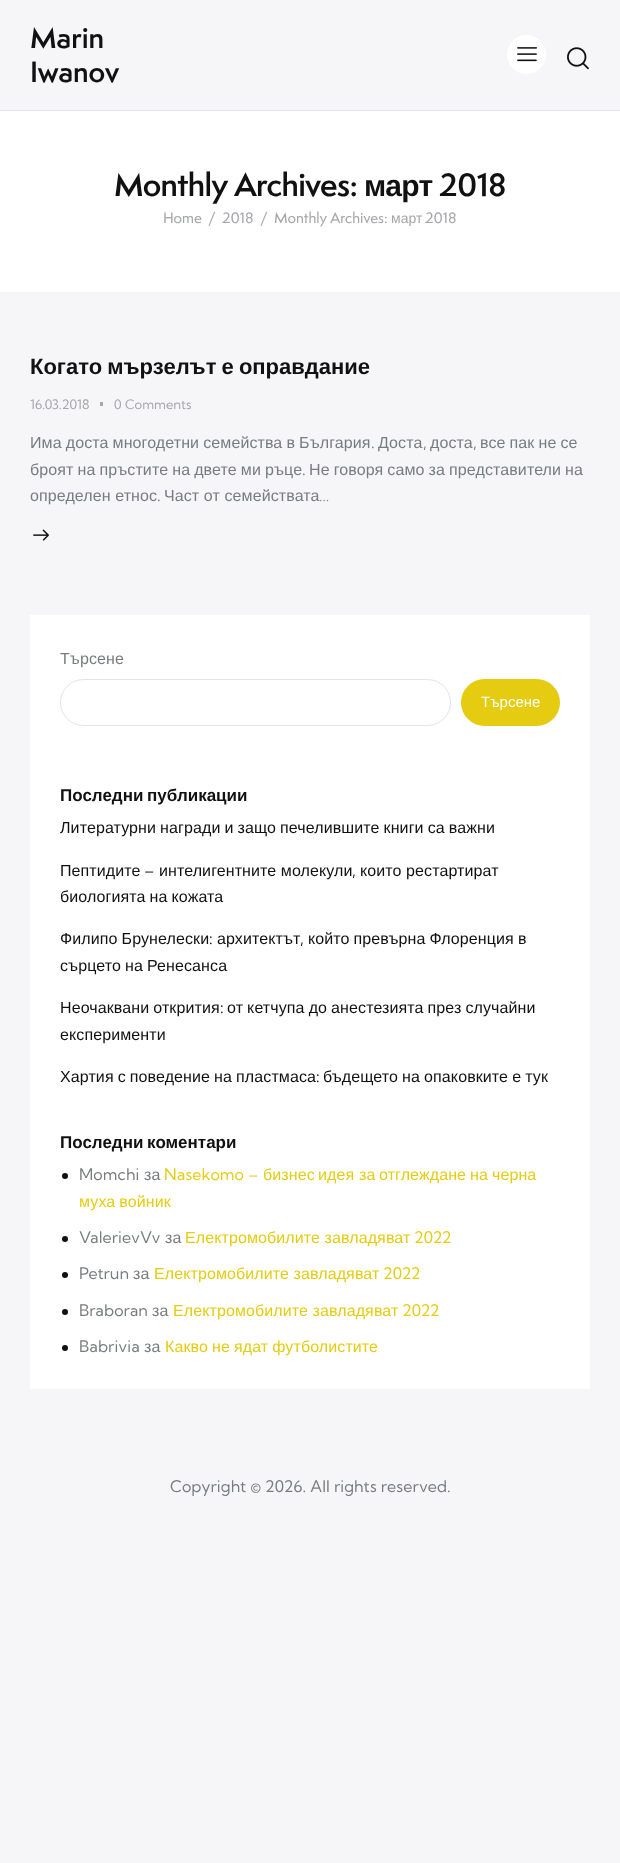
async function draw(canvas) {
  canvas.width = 620
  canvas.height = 1863
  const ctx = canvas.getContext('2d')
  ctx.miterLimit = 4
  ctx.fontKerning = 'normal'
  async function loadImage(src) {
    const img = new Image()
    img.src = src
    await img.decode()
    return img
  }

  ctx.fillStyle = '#f6f6f8'
  ctx.fillRect(0, 0, 620, 1863)
  ctx.fillStyle = '#e3e3eb'
  ctx.fillRect(0, 110, 620, 1)
  ctx.font = '600 27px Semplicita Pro'
  ctx.fillStyle = '#111'
  ctx.fillText('Marin', 30, 48)
  ctx.fillText('Iwanov', 30, 82)
  ctx.fillStyle = '#fff'
  ctx.beginPath()
  ctx.arc(526.5, 54.5, 19.5, 0, 2 * Math.PI)
  ctx.fill()
  ctx.drawImage(await loadImage('image0.png'), 517, 47, 20, 15)
  ctx.drawImage(await loadImage('image1.png'), 567, 47, 22, 23)
  ctx.fillRect(0, 111, 620, 181)
  ctx.letterSpacing = '-0.6px'
  ctx.font = '600 30px Semplicita Pro'
  ctx.fillStyle = '#111'
  ctx.fillText('Monthly Archives:', 114, 196)
  ctx.font = 'bold 30px Liberation Sans'
  ctx.fillText('март', 364, 196)
  ctx.font = '600 30px Semplicita Pro'
  ctx.fillText('2018', 439, 196)
  ctx.letterSpacing = '0px'
  ctx.font = '500 14px Semplicita Pro'
  ctx.fillStyle = '#a5a6aa'
  ctx.fillText('Home', 163, 223)
  ctx.fillText('/', 208, 223)
  ctx.fillText('2018', 222, 223)
  ctx.fillText('/', 260, 223)
  ctx.fillText('Monthly Archives:', 274, 223)
  ctx.font = '14px Liberation Sans'
  ctx.fillText('март', 391, 223)
  ctx.font = '500 14px Semplicita Pro'
  ctx.fillText('2018', 425, 223)
  ctx.wordSpacing = '-1px'
  ctx.font = 'bold 22px Liberation Sans'
  ctx.fillStyle = '#111'
  ctx.fillText('Когато мързелът е оправдание', 30, 374)
  ctx.wordSpacing = '0px'
  ctx.font = '13px Kumbh Sans'
  ctx.fillStyle = '#a5a6aa'
  ctx.fillText('16.03.2018', 30, 409)
  ctx.fillRect(100, 402, 3, 4)
  ctx.fillText('0', 114, 409)
  ctx.fillText('Comments', 125, 409)
  ctx.letterSpacing = '0.1px'
  ctx.wordSpacing = '-0.5px'
  ctx.font = '16px Liberation Sans'
  ctx.fillStyle = '#797c7f'
  ctx.fillText('Има доста многодетни семейства в България', 30, 448)
  ctx.wordSpacing = '0px'
  ctx.font = '16px Kumbh Sans'
  ctx.fillText('.', 371, 448)
  ctx.font = '16px Liberation Sans'
  ctx.fillText('Доста', 378, 448)
  ctx.font = '16px Kumbh Sans'
  ctx.fillText(',', 423, 448)
  ctx.font = '16px Liberation Sans'
  ctx.fillText('доста', 430, 448)
  ctx.font = '16px Kumbh Sans'
  ctx.fillText(',', 473, 448)
  ctx.wordSpacing = '-0.5px'
  ctx.font = '16px Liberation Sans'
  ctx.fillText('все пак не се', 480, 448)
  ctx.fillText('броят на пръстите на двете ми ръце', 30, 475)
  ctx.wordSpacing = '0px'
  ctx.font = '16px Kumbh Sans'
  ctx.fillText('.', 302, 475)
  ctx.wordSpacing = '-0.5px'
  ctx.font = '16px Liberation Sans'
  ctx.fillText('Не говоря само за представители на', 309, 475)
  ctx.wordSpacing = '0px'
  ctx.fillText('определен етнос', 30, 501)
  ctx.font = '16px Kumbh Sans'
  ctx.fillText('.', 157, 501)
  ctx.font = '16px Liberation Sans'
  ctx.fillText('Част от семействата', 164, 501)
  ctx.font = '16px Kumbh Sans'
  ctx.fillText('…', 319, 501)
  ctx.drawImage(await loadImage('image2.png'), 33, 529, 16, 12)
  ctx.fillStyle = '#fff'
  ctx.fillRect(30, 615, 560, 774)
  ctx.font = '16px Liberation Sans'
  ctx.fillStyle = '#797c7f'
  ctx.fillText('Търсене', 60, 664)
  ctx.beginPath()
  ctx.roundRect(60.5, 679.5, 390, 46, 23)
  ctx.strokeStyle = '#e3e3eb'
  ctx.stroke()
  ctx.fillStyle = '#e5cc11'
  ctx.beginPath()
  ctx.roundRect(461, 679, 99, 47, 23.5)
  ctx.fill()
  ctx.letterSpacing = '0px'
  ctx.font = '15px Liberation Sans'
  ctx.fillStyle = '#fff'
  ctx.fillText('Търсене', 481, 707)
  ctx.wordSpacing = '-1px'
  ctx.font = 'bold 17px Liberation Sans'
  ctx.fillStyle = '#111'
  ctx.fillText('Последни публикации', 60, 801)
  ctx.letterSpacing = '0.1px'
  ctx.wordSpacing = '-0.5px'
  ctx.font = '16px Liberation Sans'
  ctx.fillText('Литературни награди и защо печелившите книги са важни', 60, 833)
  ctx.wordSpacing = '0px'
  ctx.fillText('Пептидите', 60, 876)
  ctx.font = '16px Kumbh Sans'
  ctx.fillText('–', 144, 876)
  ctx.font = '16px Liberation Sans'
  ctx.fillText('интелигентните молекули', 159, 876)
  ctx.fillText('които рестартират', 360, 876)
  ctx.font = '16px Kumbh Sans'
  ctx.fillText(',', 352, 876)
  ctx.wordSpacing = '-0.5px'
  ctx.font = '16px Liberation Sans'
  ctx.fillText('биологията на кожата', 60, 902)
  ctx.fillText('Филипо Брунелески', 60, 944)
  ctx.wordSpacing = '0px'
  ctx.font = '16px Kumbh Sans'
  ctx.fillText(':', 209, 944)
  ctx.font = '16px Liberation Sans'
  ctx.fillText('архитектът', 217, 944)
  ctx.font = '16px Kumbh Sans'
  ctx.fillText(',', 300, 944)
  ctx.wordSpacing = '-0.5px'
  ctx.font = '16px Liberation Sans'
  ctx.fillText('който превърна Флоренция в', 308, 944)
  ctx.fillText('сърцето на Ренесанса', 60, 971)
  ctx.fillText('Неочаквани открития', 60, 1013)
  ctx.wordSpacing = '0px'
  ctx.font = '16px Kumbh Sans'
  ctx.fillText(':', 220, 1013)
  ctx.wordSpacing = '-0.5px'
  ctx.font = '16px Liberation Sans'
  ctx.fillText('от кетчупа до анестезията през случайни', 227, 1013)
  ctx.wordSpacing = '0px'
  ctx.fillText('експерименти', 60, 1040)
  ctx.wordSpacing = '-0.5px'
  ctx.fillText('Хартия с поведение на пластмаса', 60, 1082)
  ctx.wordSpacing = '0px'
  ctx.font = '16px Kumbh Sans'
  ctx.fillText(':', 316, 1082)
  ctx.wordSpacing = '-0.5px'
  ctx.font = '16px Liberation Sans'
  ctx.fillText('бъдещето на опаковките е тук', 323, 1082)
  ctx.letterSpacing = '0px'
  ctx.wordSpacing = '-1px'
  ctx.font = 'bold 17px Liberation Sans'
  ctx.fillText('Последни коментари', 60, 1148)
  ctx.beginPath()
  ctx.arc(65, 1176, 3, 0, 2 * Math.PI)
  ctx.fill()
  ctx.letterSpacing = '0.1px'
  ctx.wordSpacing = '0px'
  ctx.font = '16px Kumbh Sans'
  ctx.fillStyle = '#797c7f'
  ctx.fillText('Momchi', 79, 1180)
  ctx.font = '16px Liberation Sans'
  ctx.fillText('за', 144, 1180)
  ctx.font = '16px Kumbh Sans'
  ctx.fillStyle = '#e5cc11'
  ctx.fillText('Nasekomo –', 164, 1180)
  ctx.font = '16px Liberation Sans'
  ctx.fillText('бизнес', 263, 1180)
  ctx.fillText('идея', 318, 1180)
  ctx.fillText('за', 359, 1180)
  ctx.fillText('отглеждане', 379, 1180)
  ctx.fillText('на', 470, 1180)
  ctx.fillText('черна', 492, 1180)
  ctx.wordSpacing = '-0.5px'
  ctx.fillText('муха войник', 79, 1207)
  ctx.fillStyle = '#111'
  ctx.beginPath()
  ctx.arc(65, 1239, 3, 0, 2 * Math.PI)
  ctx.fill()
  ctx.wordSpacing = '0px'
  ctx.font = '16px Kumbh Sans'
  ctx.fillStyle = '#797c7f'
  ctx.fillText('ValerievVv', 79, 1243)
  ctx.font = '16px Liberation Sans'
  ctx.fillText('за', 165, 1243)
  ctx.fillStyle = '#e5cc11'
  ctx.fillText('Електромобилите завладяват', 185, 1243)
  ctx.font = '16px Kumbh Sans'
  ctx.fillText('2022', 414, 1243)
  ctx.fillStyle = '#111'
  ctx.beginPath()
  ctx.arc(65, 1275, 3, 0, 2 * Math.PI)
  ctx.fill()
  ctx.fillStyle = '#797c7f'
  ctx.fillText('Petrun', 79, 1279)
  ctx.font = '16px Liberation Sans'
  ctx.fillText('за', 133, 1279)
  ctx.fillStyle = '#e5cc11'
  ctx.fillText('Електромобилите завладяват', 154, 1279)
  ctx.font = '16px Kumbh Sans'
  ctx.fillText('2022', 383, 1279)
  ctx.fillStyle = '#111'
  ctx.beginPath()
  ctx.arc(65, 1312, 3, 0, 2 * Math.PI)
  ctx.fill()
  ctx.fillStyle = '#797c7f'
  ctx.fillText('Braboran', 79, 1316)
  ctx.font = '16px Liberation Sans'
  ctx.fillText('за', 152, 1316)
  ctx.fillStyle = '#e5cc11'
  ctx.fillText('Електромобилите завладяват', 173, 1316)
  ctx.font = '16px Kumbh Sans'
  ctx.fillText('2022', 402, 1316)
  ctx.fillStyle = '#111'
  ctx.beginPath()
  ctx.arc(65, 1348, 3, 0, 2 * Math.PI)
  ctx.fill()
  ctx.fillStyle = '#797c7f'
  ctx.fillText('Babrivia', 79, 1352)
  ctx.font = '16px Liberation Sans'
  ctx.fillText('за', 144, 1352)
  ctx.wordSpacing = '-0.5px'
  ctx.fillStyle = '#e5cc11'
  ctx.fillText('Какво не ядат футболистите', 165, 1352)
  ctx.wordSpacing = '0px'
  ctx.font = '16px Kumbh Sans'
  ctx.fillStyle = '#797c7f'
  ctx.fillText('Copyright © 2026. All rights reserved.', 170, 1492)
}

draw(document.querySelector('canvas'))
